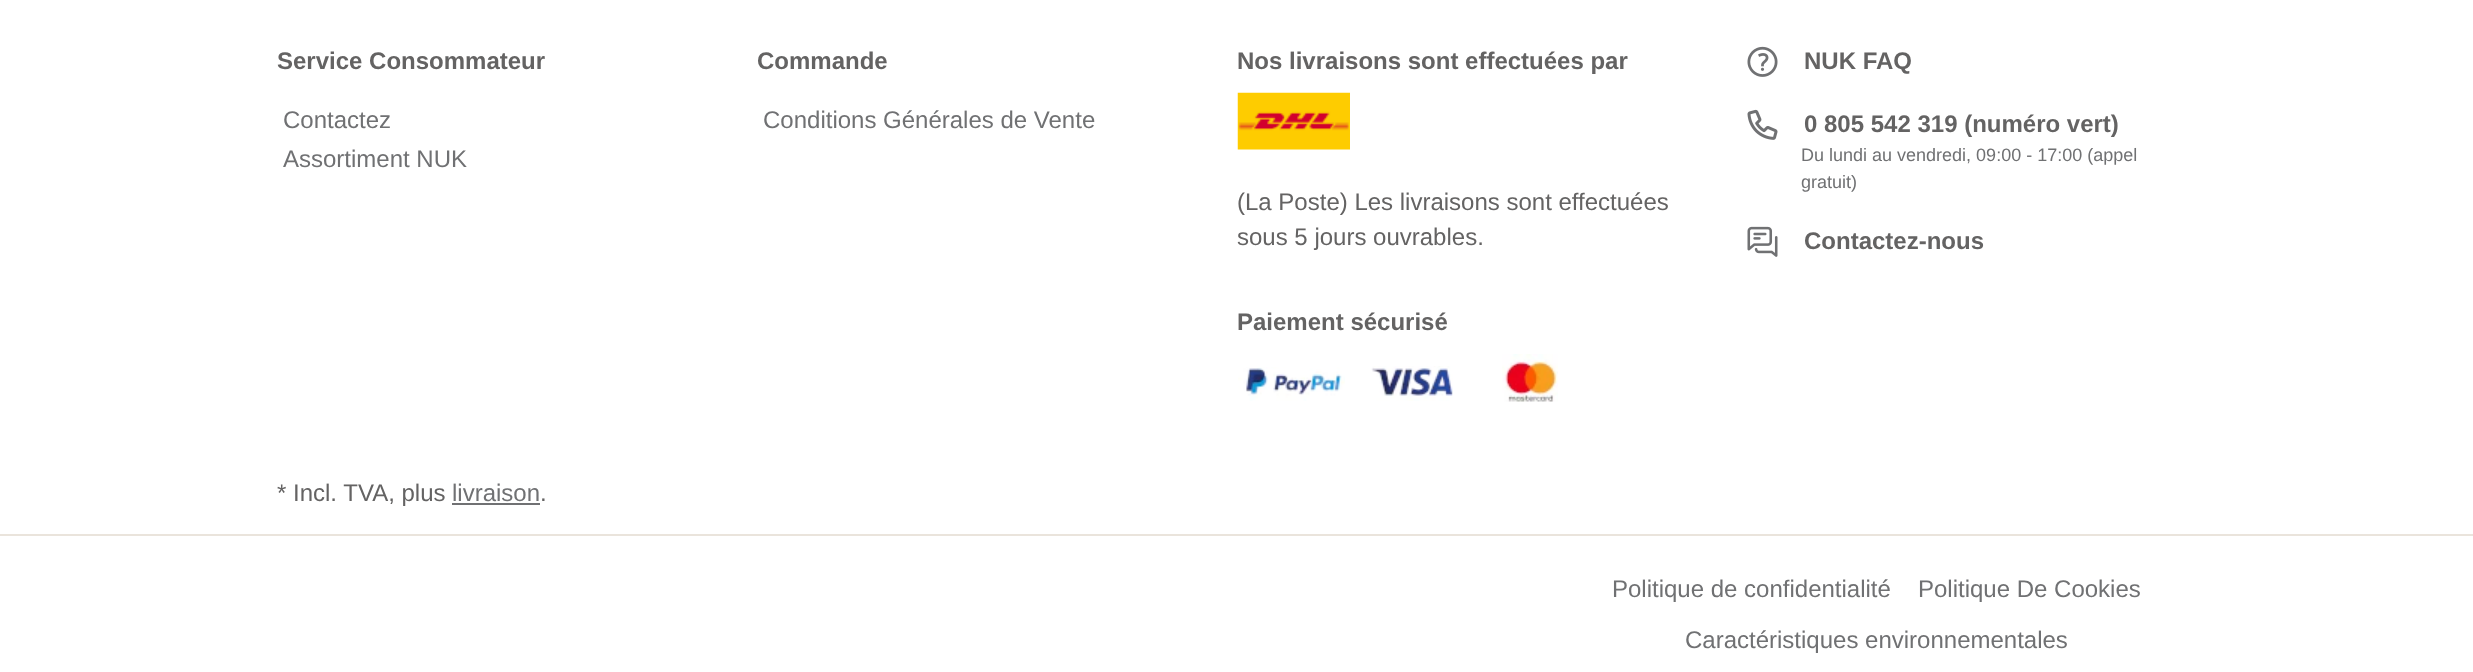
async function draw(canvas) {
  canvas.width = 2473
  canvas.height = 672
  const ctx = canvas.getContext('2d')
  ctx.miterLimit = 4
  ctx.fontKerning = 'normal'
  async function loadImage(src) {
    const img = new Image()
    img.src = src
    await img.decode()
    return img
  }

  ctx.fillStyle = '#fff'
  ctx.fillRect(0, 0, 2473, 672)
  ctx.font = 'bold 24px Liberation Sans'
  ctx.fillStyle = '#646363'
  ctx.fillText('Service Consommateur', 277, 69)
  ctx.font = '24px Liberation Sans'
  ctx.fillStyle = '#707173'
  ctx.fillText('Contactez', 283, 128)
  ctx.fillText('Assortiment NUK', 283, 167)
  ctx.save()
  ctx.beginPath()
  ctx.rect(758, 30, 480, 138)
  ctx.clip()
  ctx.font = 'bold 24px Liberation Sans'
  ctx.fillStyle = '#646363'
  ctx.fillText('Commande', 757, 69)
  ctx.restore()
  ctx.fillText('Conditions Générales de Vente', 763, 128)
  ctx.font = 'bold 24px Liberation Sans'
  ctx.fillStyle = '#646363'
  ctx.fillText('Nos livraisons sont effectuées par', 1237, 69)
  ctx.drawImage(await loadImage('image0.png'), 1237, 92, 113, 58)
  ctx.font = '24px Liberation Sans'
  ctx.fillText('(La Poste) Les livraisons sont effectuées', 1237, 210)
  ctx.fillText('sous 5 jours ouvrables.', 1237, 245)
  ctx.font = 'bold 24px Liberation Sans'
  ctx.fillText('Paiement sécurisé', 1237, 330)
  ctx.drawImage(await loadImage('image1.png'), 1238, 367, 107, 34)
  ctx.drawImage(await loadImage('image2.png'), 1371, 366, 82, 35)
  ctx.drawImage(await loadImage('image3.png'), 1502, 354, 56, 48)
  ctx.drawImage(await loadImage('image4.png'), 1747, 46, 31, 31)
  ctx.fillText('NUK FAQ', 1804, 69)
  ctx.drawImage(await loadImage('image5.png'), 1747, 109, 31, 31)
  ctx.fillText('0 805 542 319 (numéro vert)', 1804, 132)
  ctx.font = '18px Liberation Sans'
  ctx.fillStyle = '#707173'
  ctx.fillText('Du lundi au vendredi, 09:00 - 17:00 (appel', 1801, 161)
  ctx.fillText('gratuit)', 1801, 188)
  ctx.drawImage(await loadImage('image6.png'), 1747, 226, 31, 31)
  ctx.font = 'bold 24px Liberation Sans'
  ctx.fillStyle = '#646363'
  ctx.fillText('Contactez-nous', 1804, 249)
  ctx.font = '24px Liberation Sans'
  ctx.fillText('* Incl. TVA, plus', 277, 501)
  ctx.fillStyle = '#707173'
  ctx.fillText('livraison', 452, 501)
  ctx.fillRect(452, 503, 88, 2)
  ctx.fillStyle = '#646363'
  ctx.fillText('.', 540, 501)
  ctx.fillStyle = '#eae4dc'
  ctx.fillRect(0, 534, 2473, 2)
  ctx.fillStyle = '#707173'
  ctx.fillText('Politique de confidentialité', 1612, 597)
  ctx.fillText('Politique De Cookies', 1918, 597)
  ctx.fillText('Caractéristiques environnementales', 1685, 648)
}

draw(document.querySelector('canvas'))
